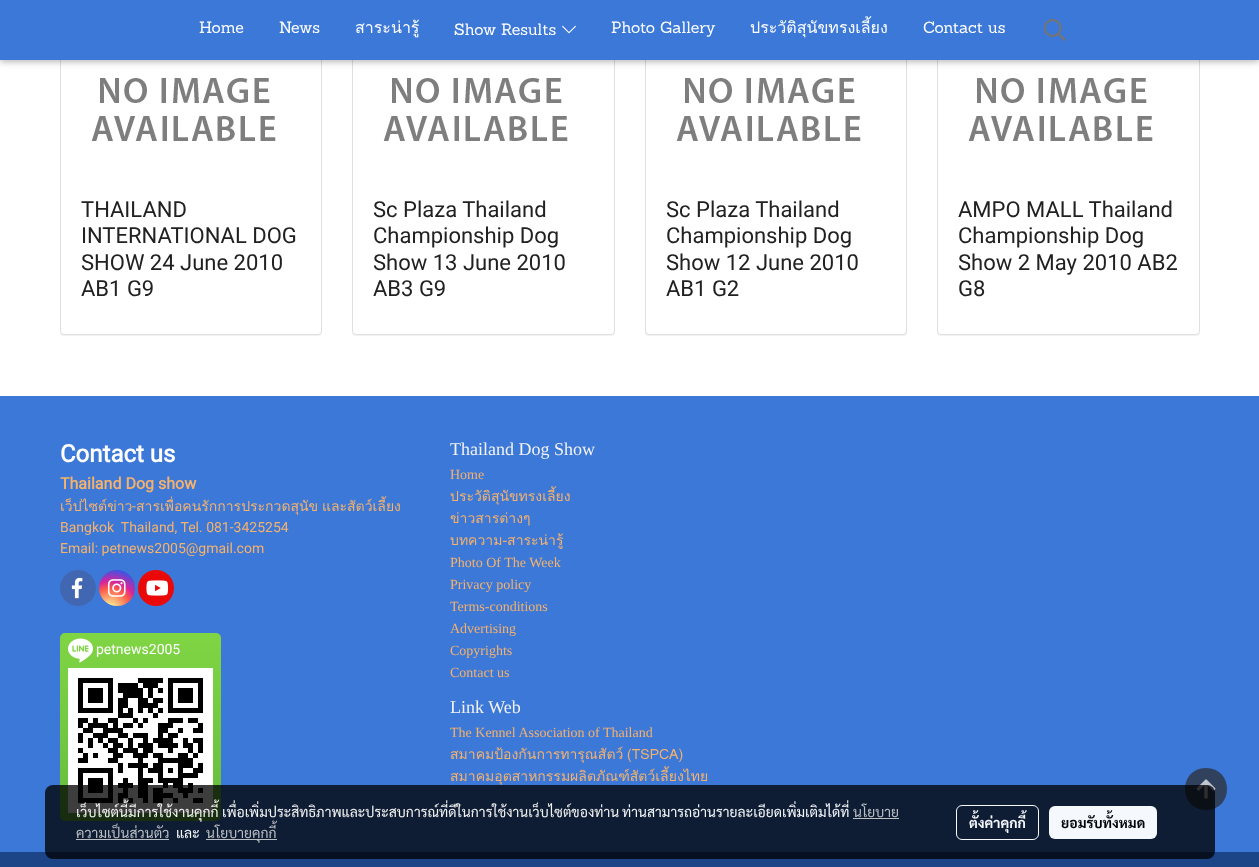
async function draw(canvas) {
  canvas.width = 1259
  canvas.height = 867
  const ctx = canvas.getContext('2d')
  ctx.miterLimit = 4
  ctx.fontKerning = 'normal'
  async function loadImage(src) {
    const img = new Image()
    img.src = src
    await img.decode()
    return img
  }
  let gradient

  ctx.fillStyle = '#fff'
  ctx.fillRect(0, 0, 1259, 867)
  ctx.fillStyle = '#0000000d'
  ctx.filter = 'blur(0.5px)'
  ctx.beginPath()
  ctx.roundRect(60, -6, 262, 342, 4)
  ctx.fill()
  ctx.filter = 'none'
  ctx.fillStyle = '#fff'
  ctx.beginPath()
  ctx.roundRect(60.5, -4.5, 261, 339, 3.5)
  ctx.fill()
  ctx.strokeStyle = '#dfdfdf'
  ctx.stroke()
  ctx.fillStyle = '#0000000d'
  ctx.filter = 'blur(0.5px)'
  ctx.beginPath()
  ctx.roundRect(352, -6, 263, 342, 4)
  ctx.fill()
  ctx.filter = 'none'
  ctx.fillStyle = '#fff'
  ctx.beginPath()
  ctx.roundRect(352.5, -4.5, 262, 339, 3.5)
  ctx.fill()
  ctx.stroke()
  ctx.fillStyle = '#0000000d'
  ctx.filter = 'blur(0.5px)'
  ctx.beginPath()
  ctx.roundRect(645, -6, 262, 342, 4)
  ctx.fill()
  ctx.filter = 'none'
  ctx.fillStyle = '#fff'
  ctx.beginPath()
  ctx.roundRect(645.5, -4.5, 261, 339, 3.5)
  ctx.fill()
  ctx.stroke()
  ctx.fillStyle = '#0000000d'
  ctx.filter = 'blur(0.5px)'
  ctx.beginPath()
  ctx.roundRect(937, -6, 263, 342, 4)
  ctx.fill()
  ctx.filter = 'none'
  ctx.fillStyle = '#fff'
  ctx.beginPath()
  ctx.roundRect(937.5, -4.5, 262, 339, 3.5)
  ctx.fill()
  ctx.stroke()
  ctx.fillStyle = '#0000001f'
  ctx.filter = 'blur(5px)'
  ctx.beginPath()
  ctx.rect(0, 2, 1259, 60)
  ctx.fill()
  ctx.filter = 'none'
  ctx.fillStyle = '#00000029'
  ctx.filter = 'blur(2.5px)'
  ctx.beginPath()
  ctx.rect(0, 2, 1259, 60)
  ctx.fill()
  ctx.filter = 'none'
  ctx.fillStyle = '#3c78d8'
  ctx.fillRect(0, 0, 1259, 60)
  ctx.font = '16px Sanchez'
  ctx.fillStyle = '#fff'
  ctx.fillText('Home', 199, 33)
  ctx.fillText('News', 279, 33)
  ctx.font = '16px Loma'
  ctx.fillText('สาระน่ารู้', 355, 33)
  ctx.font = '16px Sanchez'
  ctx.fillText('Show Results', 454, 35)
  ctx.drawImage(await loadImage('image0.png'), 562, 25, 14, 9)
  ctx.fillText('Photo Gallery', 611, 33)
  ctx.font = '16px Loma'
  ctx.fillText('ประวัติสุนัขทรงเลี้ยง', 750, 33)
  ctx.font = '16px Sanchez'
  ctx.fillText('Contact us', 923, 33)
  ctx.drawImage(await loadImage('image1.png'), 1043, 19, 23, 22)
  ctx.drawImage(await loadImage('image2.png'), 91, 78, 185, 63)
  ctx.font = '22px Roboto'
  ctx.fillStyle = '#212121'
  ctx.fillText('THAILAND', 81, 217)
  ctx.fillText('INTERNATIONAL DOG', 81, 243)
  ctx.fillText('SHOW 24 June 2010', 81, 270)
  ctx.fillText('AB1 G9', 81, 296)
  ctx.drawImage(await loadImage('image2.png'), 383, 78, 185, 63)
  ctx.fillText('Sc Plaza Thailand', 373, 217)
  ctx.fillText('Championship Dog', 373, 243)
  ctx.fillText('Show 13 June 2010', 373, 270)
  ctx.fillText('AB3 G9', 373, 296)
  ctx.drawImage(await loadImage('image2.png'), 676, 78, 185, 63)
  ctx.fillText('Sc Plaza Thailand', 666, 217)
  ctx.fillText('Championship Dog', 666, 243)
  ctx.fillText('Show 12 June 2010', 666, 270)
  ctx.fillText('AB1 G2', 666, 296)
  ctx.drawImage(await loadImage('image2.png'), 968, 78, 185, 63)
  ctx.fillText('AMPO MALL Thailand', 958, 217)
  ctx.fillText('Championship Dog', 958, 243)
  ctx.fillText('Show 2 May 2010 AB2', 958, 270)
  ctx.fillText('G8', 958, 296)
  ctx.fillStyle = '#3c78d8'
  ctx.fillRect(0, 396, 1259, 456)
  ctx.font = 'bold 24px Roboto'
  ctx.fillStyle = '#fff'
  ctx.fillText('Contact us', 60, 462)
  ctx.font = 'bold 16px Roboto'
  ctx.fillStyle = '#f6b26b'
  ctx.fillText('Thailand Dog show', 60, 489)
  ctx.font = '14px Loma'
  ctx.fillText('เว็ปไซต์ข่าว', 60, 511)
  ctx.font = '14px Roboto'
  ctx.fillText('-', 132, 511)
  ctx.wordSpacing = '-1px'
  ctx.font = '14px Loma'
  ctx.fillText('สารเพื่อคนรักการประกวดสุนัข และสัตว์เลี้ยง', 136, 511)
  ctx.wordSpacing = '0px'
  ctx.font = '14px Roboto'
  ctx.fillText('Bangkok  Thailand, Tel. 081-3425254', 60, 532)
  ctx.fillText('Email: petnews2005@gmail.com', 60, 553)
  ctx.fillStyle = '#4267b2'
  ctx.beginPath()
  ctx.arc(78, 588, 18, 0, 2 * Math.PI)
  ctx.fill()
  ctx.drawImage(await loadImage('image3.png'), 71, 577, 12, 22)
  gradient = ctx.createRadialGradient(110, 609, 0, 110, 609, 46)
  gradient.addColorStop(0, '#fdf497')
  gradient.addColorStop(0.05, '#fdf497')
  gradient.addColorStop(0.45, '#fd5949')
  gradient.addColorStop(0.6, '#d6249f')
  gradient.addColorStop(0.9, '#285aeb')
  ctx.fillStyle = gradient
  ctx.beginPath()
  ctx.arc(117, 588, 18, 0, 2 * Math.PI)
  ctx.fill()
  ctx.drawImage(await loadImage('image4.png'), 107, 579, 19, 18)
  ctx.fillStyle = '#eb0808'
  ctx.beginPath()
  ctx.arc(156, 588, 18, 0, 2 * Math.PI)
  ctx.fill()
  ctx.drawImage(await loadImage('image5.png'), 146, 580, 23, 16)
  gradient = ctx.createLinearGradient(141, 633, 141, 821)
  gradient.addColorStop(0, '#80d544')
  gradient.addColorStop(1, '#65bc3e')
  ctx.fillStyle = gradient
  ctx.beginPath()
  ctx.roundRect(60, 633, 161, 188, 5)
  ctx.fill()
  ctx.drawImage(await loadImage('image6.png'), 68, 638, 25, 25)
  ctx.fillStyle = '#fff'
  ctx.fillText('petnews2005', 96, 654)
  ctx.drawImage(await loadImage('image7.png'), 68, 668, 145, 145)
  ctx.font = '18px Liberation Serif'
  ctx.fillStyle = '#f3f3f3'
  ctx.fillText('Thailand Dog Show', 450, 455)
  ctx.font = '14px Liberation Serif'
  ctx.fillStyle = '#f6b26b'
  ctx.fillText('Home', 450, 479)
  ctx.font = '14px Loma'
  ctx.fillText('ประวัติสุนัขทรงเลี้ยง', 450, 501)
  ctx.fillText('ข่าวสารต่างๆ', 450, 523)
  ctx.fillText('บทความ-สาระน่ารู้', 450, 545)
  ctx.font = '14px Liberation Serif'
  ctx.fillText('Photo Of The Week', 450, 567)
  ctx.fillText('Privacy policy', 450, 589)
  ctx.fillText('Terms-conditions', 450, 611)
  ctx.fillText('Advertising', 450, 633)
  ctx.fillText('Copyrights', 450, 655)
  ctx.fillText('Contact us', 450, 677)
  ctx.font = '18px Liberation Serif'
  ctx.fillStyle = '#f3f3f3'
  ctx.fillText('Link Web', 450, 713)
  ctx.font = '14px Liberation Serif'
  ctx.fillStyle = '#f6b26b'
  ctx.fillText('The Kennel Association of Thailand', 450, 737)
  ctx.wordSpacing = '-1px'
  ctx.font = '14px Loma'
  ctx.fillText('สมาคมป้องกันการทารุณสัตว์ (TSPCA)', 450, 759)
  ctx.wordSpacing = '0px'
  ctx.fillText('สมาคมอุตสาหกรรมผลิตภัณฑ์สัตว์เลี้ยงไทย', 450, 781)
  ctx.fillStyle = '#1c4587'
  ctx.fillRect(0, 852, 1259, 15)
  ctx.fillStyle = '#30415e'
  ctx.beginPath()
  ctx.moveTo(1206, 768)
  ctx.bezierCurveTo(1178, 768, 1178, 810, 1206, 810)
  ctx.bezierCurveTo(1234, 810, 1234, 768, 1206, 768)
  ctx.closePath()
  ctx.fill()
  ctx.drawImage(await loadImage('image8.png'), 1196, 779, 20, 20)
  ctx.fillStyle = '#000000c2'
  ctx.beginPath()
  ctx.roundRect(45, 785, 1170, 74, 8)
  ctx.fill()
  ctx.font = '14px Sarabun'
  ctx.fillStyle = '#f3f3f3'
  ctx.fillText('เว็บไซต์นี้มีการใช้งานคุกกี้ เพื่อเพิ่มประสิทธิภาพและประสบการณ์ที่ดีในการใช้งานเว็บไซต์ของท่าน', 76, 817)
  ctx.fillStyle = '#f5f8fd'
  ctx.fillText('ท่านสามารถอ่านรายละเอียดเพิ่มเติมได้ที่', 622, 817)
  ctx.fillStyle = '#bbbec3'
  ctx.fillText('นโยบาย', 853, 817)
  ctx.fillRect(853, 818, 46, 1)
  ctx.fillText('ความเป็นส่วนตัว', 76, 838)
  ctx.fillRect(76, 839, 93, 1)
  ctx.fillStyle = '#f5f8fd'
  ctx.fillText('และ', 176, 838)
  ctx.fillStyle = '#bbbec3'
  ctx.fillRect(206, 839, 71, 1)
  ctx.fillText('นโยบายคุกกี้', 206, 838)
  ctx.beginPath()
  ctx.roundRect(956.5, 805.5, 82, 34, 5.5)
  ctx.strokeStyle = '#f5f8fd'
  ctx.stroke()
  ctx.font = 'bold 14px Sarabun'
  ctx.fillStyle = '#f5f8fd'
  ctx.fillText('ตั้งค่าคุกกี้', 969, 828)
  ctx.beginPath()
  ctx.roundRect(1049, 806, 108, 33, 6)
  ctx.fill()
  ctx.fillStyle = '#03060b'
  ctx.fillText('ยอมรับทั้งหมด', 1061, 828)
}

draw(document.querySelector('canvas'))
